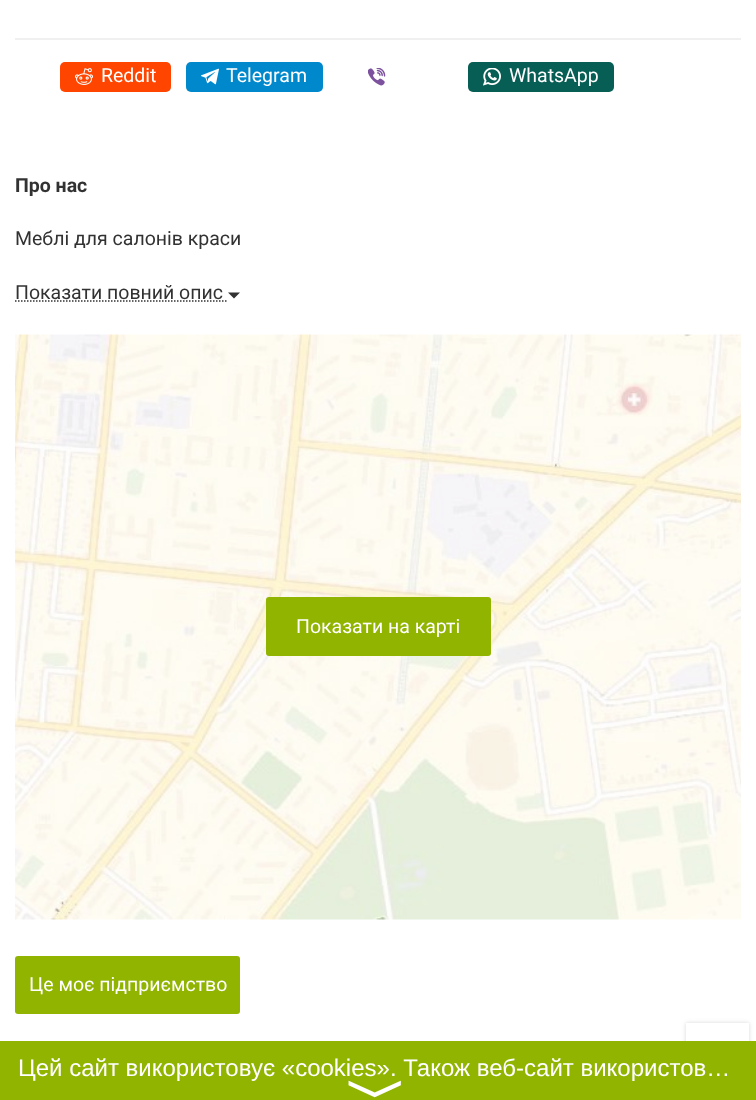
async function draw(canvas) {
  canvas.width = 756
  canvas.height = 1100
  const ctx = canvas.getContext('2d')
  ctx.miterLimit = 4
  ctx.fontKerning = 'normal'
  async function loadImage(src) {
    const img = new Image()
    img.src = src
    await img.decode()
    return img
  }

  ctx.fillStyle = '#fff'
  ctx.fillRect(0, 0, 756, 1100)
  ctx.fillStyle = '#f0f0f0'
  ctx.fillRect(15, 38, 726, 2)
  ctx.fillStyle = '#ff4500'
  ctx.beginPath()
  ctx.roundRect(60, 62, 111, 30, 5)
  ctx.fill()
  ctx.drawImage(await loadImage('image0.png'), 75, 68, 18, 17)
  ctx.font = '19.5px Roboto'
  ctx.fillStyle = '#fff'
  ctx.fillText('Reddit', 101, 82)
  ctx.fillStyle = '#08c'
  ctx.beginPath()
  ctx.roundRect(186, 62, 137, 30, 5)
  ctx.fill()
  ctx.drawImage(await loadImage('image1.png'), 201, 68, 18, 17)
  ctx.fillStyle = '#fff'
  ctx.fillText('Telegram', 226, 82)
  ctx.drawImage(await loadImage('image2.png'), 368, 68, 18, 18)
  ctx.fillStyle = '#075e54'
  ctx.beginPath()
  ctx.roundRect(468, 62, 146, 30, 5)
  ctx.fill()
  ctx.drawImage(await loadImage('image3.png'), 483, 68, 18, 18)
  ctx.fillStyle = '#fff'
  ctx.fillText('WhatsApp', 509, 82)
  ctx.font = 'bold 19.5px Roboto'
  ctx.fillStyle = '#323232'
  ctx.fillText('Про нас', 15, 192)
  ctx.font = '19.5px Roboto'
  ctx.fillText('Меблі для салонів краси', 15, 245)
  ctx.fillText('Показати повний опис', 15, 299)
  ctx.beginPath()
  ctx.moveTo(15, 301)
  ctx.lineTo(228, 301)
  ctx.strokeStyle = '#323232'
  ctx.lineWidth = 1.5
  ctx.setLineDash([1.5, 1.5])
  ctx.stroke()
  ctx.beginPath()
  ctx.moveTo(228, 292.5)
  ctx.lineTo(240, 292.5)
  ctx.lineTo(234, 298.5)
  ctx.closePath()
  ctx.fill()
  ctx.drawImage(await loadImage('image4.png'), 15, 334, 726, 586)
  ctx.fillStyle = '#90b400'
  ctx.beginPath()
  ctx.roundRect(266, 597, 225, 59, 3)
  ctx.fill()
  ctx.fillStyle = '#fff'
  ctx.fillText('Показати на карті', 296, 633)
  ctx.fillStyle = '#90b400'
  ctx.beginPath()
  ctx.roundRect(15, 956, 225, 58, 3)
  ctx.fill()
  ctx.fillStyle = '#fff'
  ctx.fillText('Це моє підприємство', 29, 991)
  ctx.fillStyle = '#63636340'
  ctx.filter = 'blur(2px)'
  ctx.beginPath()
  ctx.rect(686, 1023, 63, 63)
  ctx.fill()
  ctx.filter = 'none'
  ctx.fillStyle = '#fff'
  ctx.fillRect(686, 1023, 63, 18)
  ctx.fillStyle = '#90b400'
  ctx.fillRect(0, 1041, 756, 59)
  ctx.font = '24px Liberation Sans'
  ctx.fillStyle = '#fff'
  ctx.fillText('Цей сайт використовує «cookies». Також веб-сайт використов…', 18, 1076)
  ctx.font = '60px FreeSans'
  ctx.save()
  ctx.translate(357, 1079)
  ctx.rotate(90 * Math.PI / 180)
  ctx.fillText('〉', 0, 0)
  ctx.restore()
}

draw(document.querySelector('canvas'))
